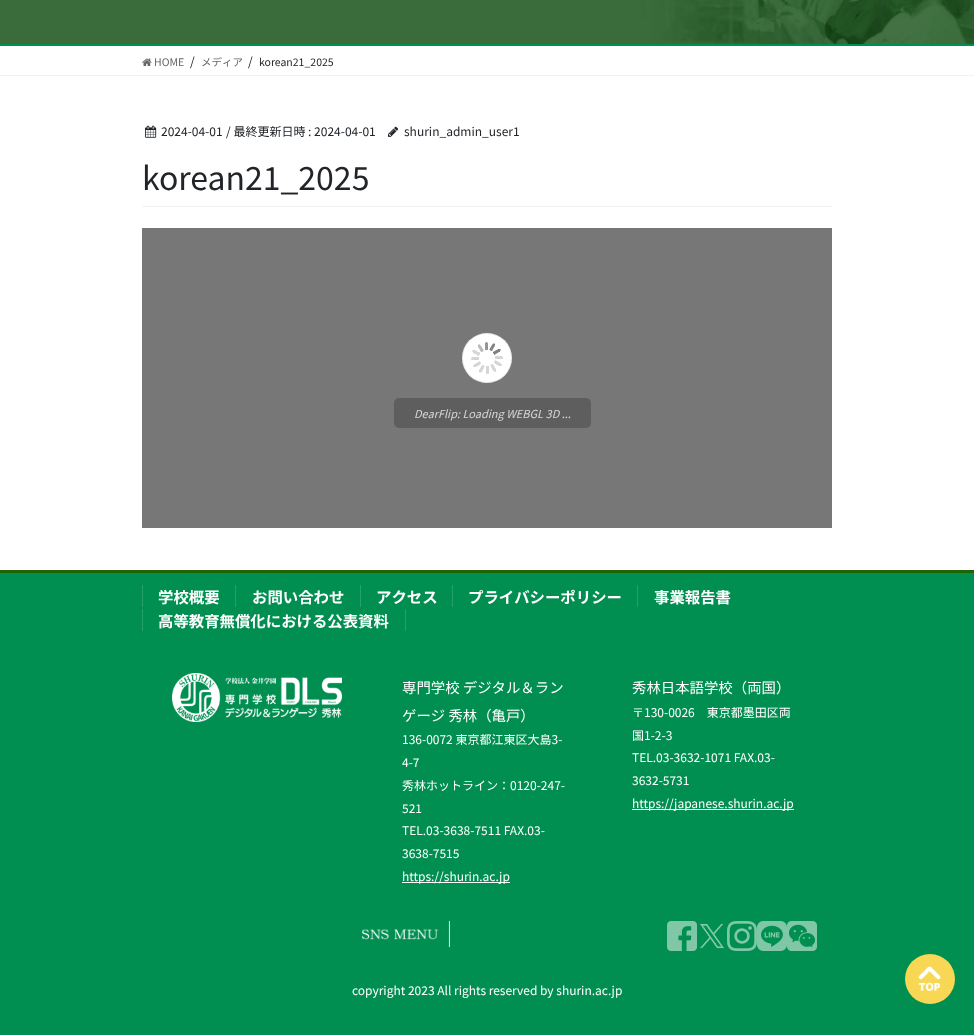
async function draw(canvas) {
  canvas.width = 974
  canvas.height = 1035
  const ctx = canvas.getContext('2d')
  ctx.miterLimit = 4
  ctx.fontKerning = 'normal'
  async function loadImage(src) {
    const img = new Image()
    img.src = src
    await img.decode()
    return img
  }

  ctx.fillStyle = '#fff'
  ctx.fillRect(0, 0, 974, 1035)
  ctx.drawImage(await loadImage('image0.png'), 0, 0, 974, 44)
  ctx.fillStyle = '#008f51'
  ctx.fillRect(0, 44, 974, 2)
  ctx.fillStyle = '#f2f2f2'
  ctx.fillRect(0, 75, 974, 1)
  ctx.drawImage(await loadImage('image1.png'), 142, 58, 10, 8)
  ctx.font = '10.5px Noto Sans JP'
  ctx.fillStyle = '#666'
  ctx.fillText('HOME', 154, 66)
  ctx.font = '12px Noto Sans JP'
  ctx.fillStyle = '#212529'
  ctx.fillText('/', 190, 66)
  ctx.font = '10.5px Noto Sans JP'
  ctx.fillStyle = '#666'
  ctx.fillText('メディア', 201, 66)
  ctx.font = '12px Noto Sans JP'
  ctx.fillStyle = '#212529'
  ctx.fillText('/', 248, 66)
  ctx.font = '10.5px Noto Sans JP'
  ctx.fillText('korean21_2025', 259, 66)
  ctx.fillStyle = '#f2f2f2'
  ctx.fillRect(142, 206, 690, 1)
  ctx.drawImage(await loadImage('image2.png'), 145, 125, 12, 13)
  ctx.font = '12px Noto Sans JP'
  ctx.fillStyle = '#212529'
  ctx.fillText('2024-04-01', 161, 136)
  ctx.fillText('/ 最終更新日時 : 2024-04-01', 226, 136)
  ctx.drawImage(await loadImage('image3.png'), 388, 126, 11, 11)
  ctx.fillText('shurin_admin_user1', 404, 136)
  ctx.font = '32px Noto Sans JP'
  ctx.fillText('korean21_2025', 142, 190)
  ctx.fillStyle = '#777'
  ctx.fillRect(142, 228, 690, 300)
  ctx.fillStyle = '#fff'
  ctx.beginPath()
  ctx.arc(487, 358, 25, 0, 2 * Math.PI)
  ctx.fill()
  ctx.beginPath()
  ctx.arc(487, 358, 24.5, 0, 2 * Math.PI)
  ctx.strokeStyle = '#96969633'
  ctx.stroke()
  ctx.drawImage(await loadImage('image4.png'), 471, 342, 32, 32)
  ctx.fillStyle = '#5e5e5e'
  ctx.beginPath()
  ctx.roundRect(394, 398, 197, 30, 5)
  ctx.fill()
  ctx.font = 'italic 11px Noto Sans JP'
  ctx.fillStyle = '#d6d6d6'
  ctx.fillText('DearFlip: Loading WEBGL 3D ...', 414, 418)
  ctx.fillStyle = '#008f51'
  ctx.fillRect(0, 573, 974, 462)
  ctx.fillStyle = '#1d6407'
  ctx.fillRect(0, 570, 974, 3)
  ctx.font = 'bold 15.4px Noto Sans JP'
  ctx.fillStyle = '#fff'
  ctx.fillText('学校概要', 158, 603)
  ctx.fillStyle = '#26a06b'
  ctx.fillRect(142, 585, 1, 22)
  ctx.fillStyle = '#fff'
  ctx.fillText('お問い合わせ', 252, 603)
  ctx.fillStyle = '#26a06b'
  ctx.fillRect(235, 585, 1, 22)
  ctx.fillStyle = '#fff'
  ctx.fillText('アクセス', 376, 603)
  ctx.fillStyle = '#26a06b'
  ctx.fillRect(360, 585, 1, 22)
  ctx.fillStyle = '#fff'
  ctx.fillText('プライバシーポリシー', 468, 603)
  ctx.fillStyle = '#26a06b'
  ctx.fillRect(452, 585, 1, 22)
  ctx.fillStyle = '#fff'
  ctx.fillText('事業報告書', 654, 603)
  ctx.fillStyle = '#26a06b'
  ctx.fillRect(637, 585, 1, 22)
  ctx.fillStyle = '#fff'
  ctx.fillText('高等教育無償化における公表資料', 158, 627)
  ctx.fillStyle = '#26a06b'
  ctx.fillRect(405, 609, 1, 22)
  ctx.fillRect(142, 609, 1, 22)
  ctx.drawImage(await loadImage('image5.png'), 172, 673, 170, 49)
  ctx.font = '14.4px Noto Sans JP'
  ctx.fillStyle = '#fff'
  ctx.fillText('専門学校 デジタル＆ラン', 402, 693)
  ctx.fillText('ゲージ 秀林（亀戸）', 402, 721)
  ctx.font = '12px Noto Sans JP'
  ctx.fillText('136-0072 東京都江東区大島3-', 402, 744)
  ctx.fillText('4-7', 402, 767)
  ctx.fillText('秀林ホットライン：0120-247-', 402, 790)
  ctx.fillText('521', 402, 813)
  ctx.fillText('TEL.03-3638-7511 FAX.03-', 402, 835)
  ctx.fillText('3638-7515', 402, 858)
  ctx.fillRect(402, 882, 108, 1)
  ctx.fillText('https://shurin.ac.jp', 402, 881)
  ctx.font = '14.4px Noto Sans JP'
  ctx.fillText('秀林日本語学校（両国）', 632, 693)
  ctx.font = '12px Noto Sans JP'
  ctx.fillText('〒130-0026　東京都墨田区両', 632, 717)
  ctx.fillText('国1-2-3', 632, 740)
  ctx.fillText('TEL.03-3632-1071 FAX.03-', 632, 762)
  ctx.fillText('3632-5731', 632, 785)
  ctx.fillRect(632, 809, 162, 1)
  ctx.fillText('https://japanese.shurin.ac.jp', 632, 808)
  ctx.drawImage(await loadImage('image6.png'), 362, 921, 88, 26)
  ctx.drawImage(await loadImage('image7.png'), 667, 921, 30, 30)
  ctx.drawImage(await loadImage('image8.png'), 700, 923, 24, 26)
  ctx.drawImage(await loadImage('image9.png'), 727, 921, 30, 30)
  ctx.drawImage(await loadImage('image10.png'), 757, 921, 30, 30)
  ctx.drawImage(await loadImage('image11.png'), 787, 921, 30, 30)
  ctx.fillText('copyright 2023 All rights reserved by shurin.ac.jp', 352, 995)
  ctx.fillStyle = '#f7d754'
  ctx.beginPath()
  ctx.arc(930, 979, 25, 0, 2 * Math.PI)
  ctx.fill()
  ctx.drawImage(await loadImage('image12.png'), 918, 966, 23, 25)
}

draw(document.querySelector('canvas'))
